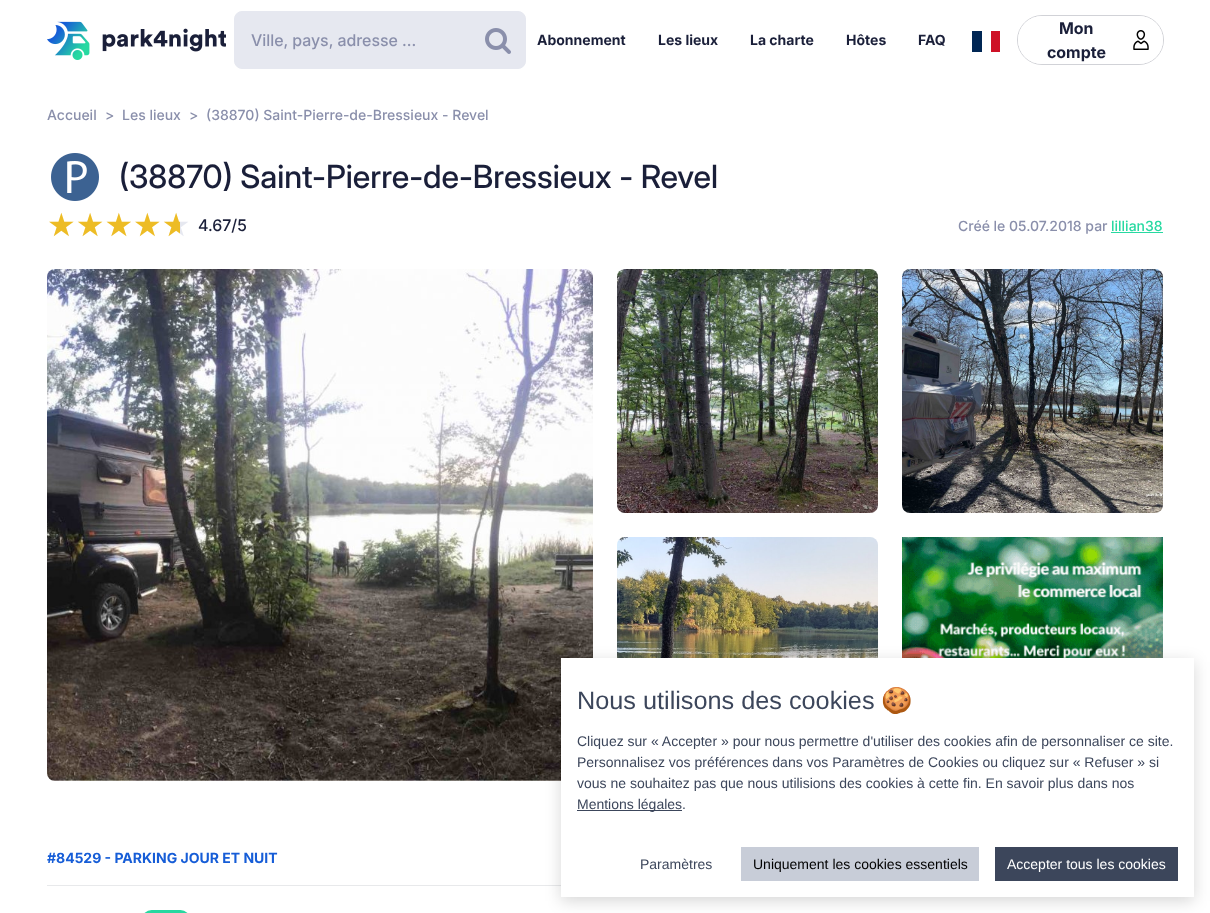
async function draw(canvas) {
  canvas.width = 1210
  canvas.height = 913
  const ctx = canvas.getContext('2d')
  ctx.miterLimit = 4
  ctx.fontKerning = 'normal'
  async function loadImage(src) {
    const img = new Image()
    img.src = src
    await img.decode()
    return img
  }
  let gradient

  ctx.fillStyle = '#fff'
  ctx.fillRect(0, 0, 1210, 913)
  ctx.drawImage(await loadImage('image0.png'), 47, 21, 179, 39)
  ctx.fillStyle = '#e6e8f0'
  ctx.beginPath()
  ctx.roundRect(234.5, 11.5, 291, 57, 7.5)
  ctx.fill()
  ctx.strokeStyle = '#e6e8f0'
  ctx.stroke()
  ctx.font = '500 16px "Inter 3"'
  ctx.fillStyle = '#8a8fab'
  ctx.fillText('Ville, pays, adresse ...', 251, 46)
  ctx.drawImage(await loadImage('image1.png'), 485, 28, 26, 26)
  ctx.font = 'bold 14px Inter'
  ctx.fillStyle = '#1a1f39'
  ctx.fillText('Abonnement', 537, 45)
  ctx.fillText('Les lieux', 658, 45)
  ctx.fillText('La charte', 750, 45)
  ctx.fillText('Hôtes', 846, 45)
  ctx.fillText('FAQ', 918, 45)
  ctx.fillStyle = '#002654'
  ctx.fillRect(972, 31, 10, 21)
  ctx.fillStyle = '#ce1126'
  ctx.fillRect(991, 31, 9, 21)
  ctx.beginPath()
  ctx.roundRect(1017.5, 15.5, 146, 49, 24.5)
  ctx.strokeStyle = '#d1d2d7'
  ctx.stroke()
  ctx.fillStyle = '#fff'
  ctx.beginPath()
  ctx.roundRect(1018, 16, 145, 48, 24)
  ctx.fill()
  ctx.font = 'bold 16px "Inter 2"'
  ctx.fillStyle = '#1a1f39'
  ctx.fillText('Mon', 1059, 34)
  ctx.fillText('compte', 1047, 58)
  ctx.drawImage(await loadImage('image2.png'), 1133, 30, 16, 20)
  ctx.font = '500 14px Inter'
  ctx.fillStyle = '#8a8fab'
  ctx.fillText('Accueil', 47, 120)
  ctx.fillText('>', 105, 120)
  ctx.fillText('Les lieux', 122, 120)
  ctx.fillText('>', 189, 120)
  ctx.fillText('(38870) Saint-Pierre-de-Bressieux - Revel', 206, 120)
  ctx.drawImage(await loadImage('image3.png'), 51, 153, 48, 48)
  ctx.font = '500 32px "Inter 2"'
  ctx.fillStyle = '#1a1f39'
  ctx.fillText('(38870) Saint-Pierre-de-Bressieux - Revel', 119, 188)
  ctx.font = '32px DejaVu Sans'
  gradient = ctx.createLinearGradient(47, 225, 190, 225)
  gradient.addColorStop(0.93, '#edbc25')
  gradient.addColorStop(0.93, '#e6e8f0')
  ctx.fillStyle = gradient
  ctx.fillText('★★★★★', 47, 236)
  ctx.font = '500 16px "Inter 3"'
  ctx.fillStyle = '#1a1f39'
  ctx.fillText('4.67/5', 198, 231)
  ctx.font = '500 14px Inter'
  ctx.fillStyle = '#8a8fab'
  ctx.fillText('Créé le 05.07.2018 par', 958, 231)
  ctx.fillStyle = '#27d9a1'
  ctx.fillText('lillian38', 1111, 231)
  ctx.fillRect(1111, 232, 52, 1)
  ctx.drawImage(await loadImage('image4.png'), 47, 269, 546, 512)
  ctx.drawImage(await loadImage('image5.png'), 617, 269, 261, 244)
  ctx.drawImage(await loadImage('image6.png'), 902, 269, 261, 244)
  ctx.drawImage(await loadImage('image7.png'), 617, 537, 261, 121)
  ctx.drawImage(await loadImage('image8.png'), 902, 537, 261, 121)
  ctx.font = 'bold 14px Inter'
  ctx.fillStyle = '#165dd7'
  ctx.fillText('#84529 - PARKING JOUR ET NUIT', 47, 863)
  ctx.fillStyle = '#e8e9eb'
  ctx.fillRect(47, 885, 514, 1)
  ctx.drawImage(await loadImage('image9.png'), 144, 910, 44, 3)
  ctx.fillStyle = '#00000029'
  ctx.filter = 'blur(8px)'
  ctx.beginPath()
  ctx.rect(561, 662, 633, 239)
  ctx.fill()
  ctx.filter = 'none'
  ctx.fillStyle = '#fff'
  ctx.fillRect(561, 658, 633, 239)
  ctx.font = '25.25px Liberation Sans'
  ctx.fillStyle = '#3c465b'
  ctx.fillText('Nous utilisons des cookies', 577, 709)
  ctx.font = '25.25px Noto Color Emoji'
  ctx.fillText('🍪', 881, 709)
  ctx.font = '14px Liberation Sans'
  ctx.fillText('Cliquez sur « Accepter » pour nous permettre d\'utiliser des cookies afin de personnaliser ce site.', 577, 746)
  ctx.fillText('Personnalisez vos préférences dans vos Paramètres de Cookies ou cliquez sur « Refuser » si', 577, 767)
  ctx.fillText('vous ne souhaitez pas que nous utilisions des cookies à cette fin. En savoir plus dans nos', 577, 788)
  ctx.fillRect(577, 810, 105, 1)
  ctx.fillText('Mentions légales.', 577, 809)
  ctx.fillText('Paramètres', 640, 869)
  ctx.fillStyle = '#c8cdd8'
  ctx.fillRect(741, 847, 238, 34)
  ctx.fillStyle = '#000'
  ctx.fillText('Uniquement les cookies essentiels', 753, 869)
  ctx.fillStyle = '#3c465b'
  ctx.fillRect(995, 847, 183, 34)
  ctx.fillStyle = '#fff'
  ctx.fillText('Accepter tous les cookies', 1007, 869)
}

draw(document.querySelector('canvas'))
